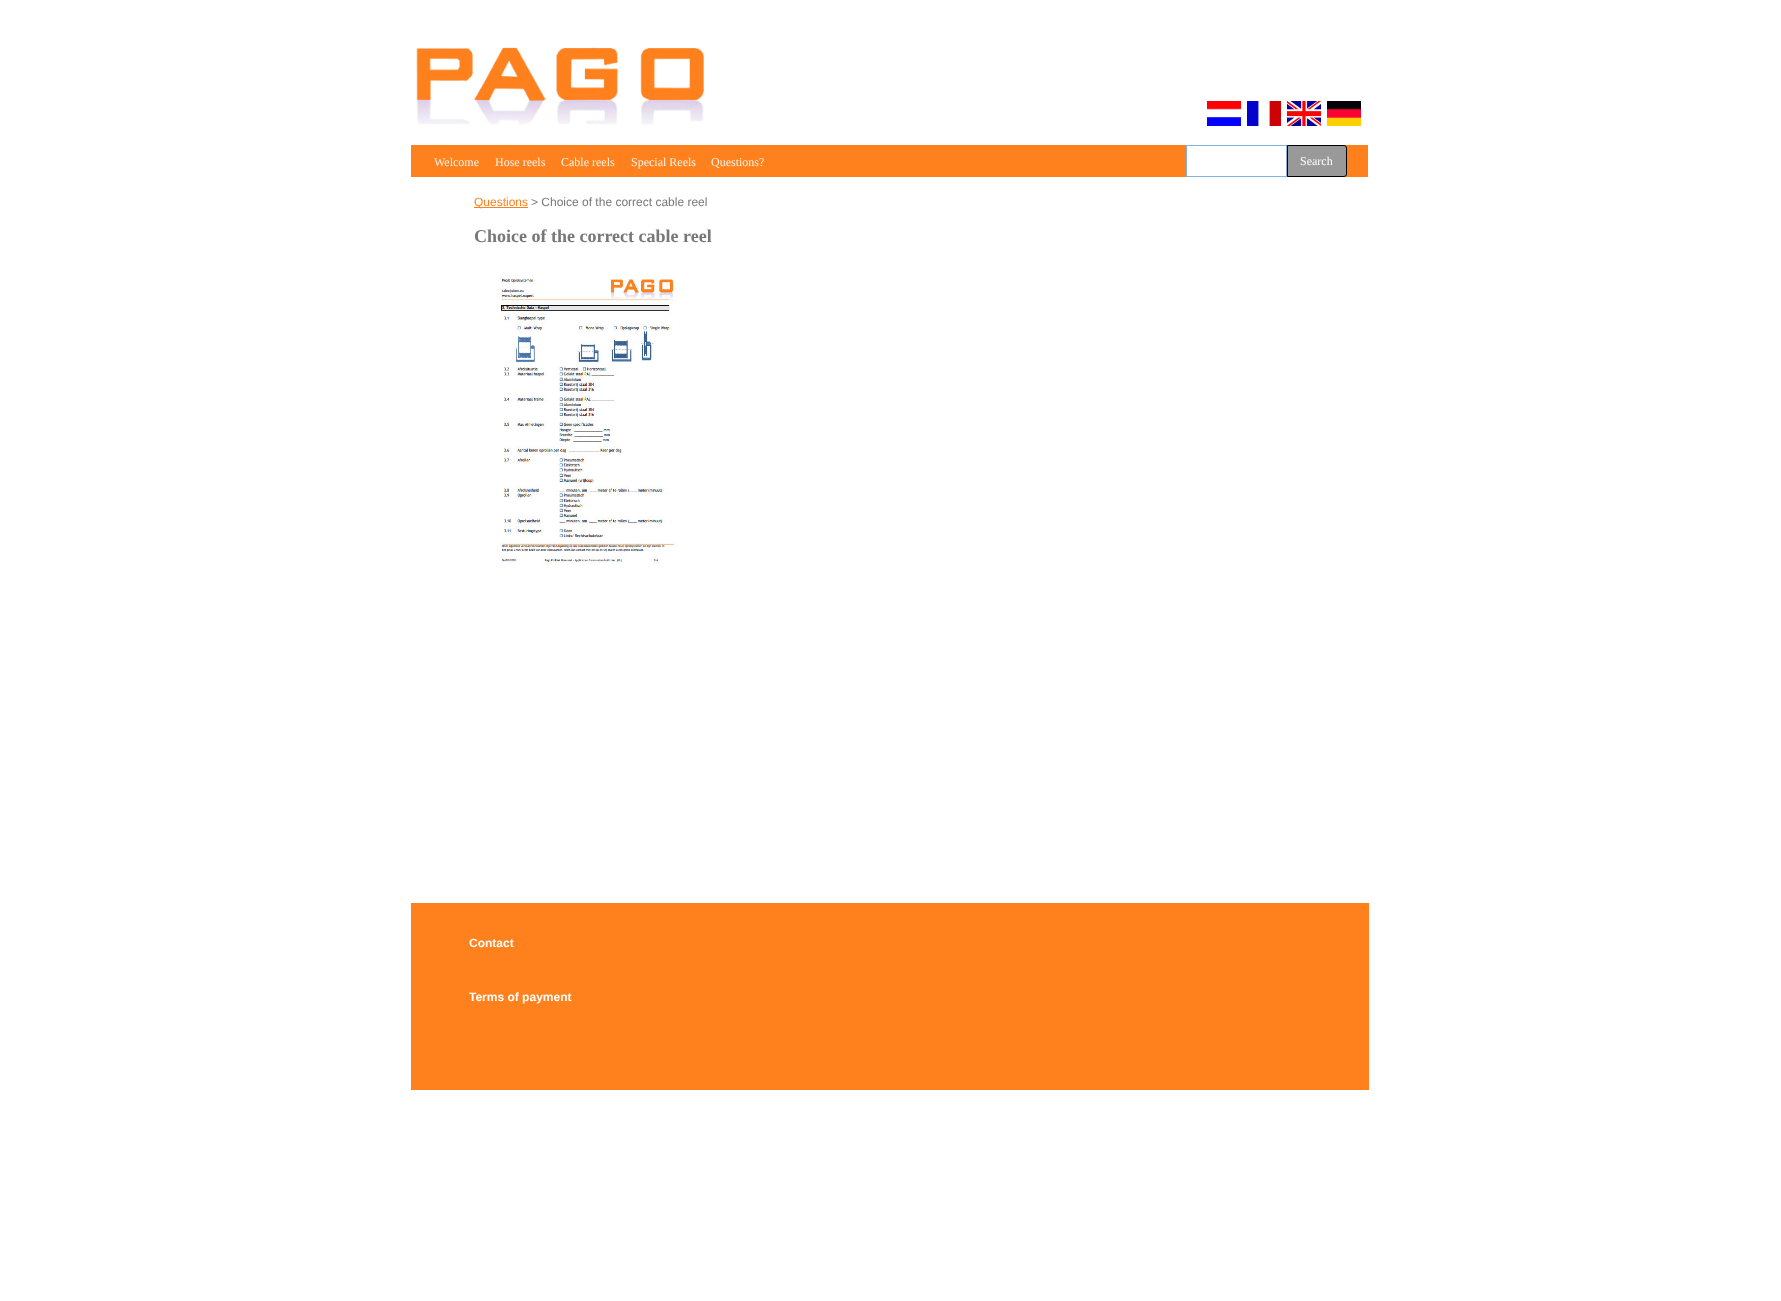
async function draw(canvas) {
  canvas.width = 1781
  canvas.height = 1301
  const ctx = canvas.getContext('2d')
  ctx.miterLimit = 4
  ctx.fontKerning = 'normal'
  async function loadImage(src) {
    const img = new Image()
    img.src = src
    await img.decode()
    return img
  }

  ctx.fillStyle = '#fff'
  ctx.fillRect(0, 0, 1781, 1301)
  ctx.drawImage(await loadImage('image0.png'), 416, 47, 288, 79)
  ctx.drawImage(await loadImage('image1.png'), 1207, 101, 34, 25)
  ctx.drawImage(await loadImage('image2.png'), 1247, 101, 34, 25)
  ctx.drawImage(await loadImage('image3.png'), 1287, 101, 34, 25)
  ctx.drawImage(await loadImage('image4.png'), 1327, 101, 34, 25)
  ctx.fillStyle = '#ff811d'
  ctx.fillRect(411, 145, 957, 32)
  ctx.font = '12px Liberation Serif'
  ctx.fillStyle = '#fff2e8'
  ctx.fillText('Welcome', 434, 166)
  ctx.fillText('Hose reels', 495, 166)
  ctx.fillText('Cable reels', 561, 166)
  ctx.fillText('Special Reels', 631, 166)
  ctx.fillText('Questions?', 711, 166)
  ctx.fillStyle = '#fff'
  ctx.beginPath()
  ctx.rect(1186.5, 145.5, 100, 31)
  ctx.fill()
  ctx.strokeStyle = '#85b1de'
  ctx.stroke()
  ctx.fillStyle = '#999'
  ctx.beginPath()
  ctx.roundRect(1287.5, 145.5, 59, 31, [0, 2.5, 2.5, 0])
  ctx.fill()
  ctx.strokeStyle = '#000'
  ctx.stroke()
  ctx.fillStyle = '#fff'
  ctx.fillText('Search', 1300, 165)
  ctx.fillStyle = '#ff811d'
  ctx.fillRect(474, 207, 54, 1)
  ctx.font = '12px Liberation Sans'
  ctx.fillText('Questions', 474, 206)
  ctx.fillStyle = '#777'
  ctx.fillText('> Choice of the correct cable reel', 531, 206)
  ctx.font = 'bold 18px Liberation Serif'
  ctx.fillText('Choice of the correct cable reel', 474, 242)
  ctx.drawImage(await loadImage('image5.png'), 500, 275, 177, 289)
  ctx.fillStyle = '#ff811d'
  ctx.fillRect(411, 903, 958, 187)
  ctx.font = 'bold 12px Liberation Sans'
  ctx.fillStyle = '#fff'
  ctx.fillText('Contact', 469, 947)
  ctx.fillText('Terms of payment', 469, 1001)
}

draw(document.querySelector('canvas'))
